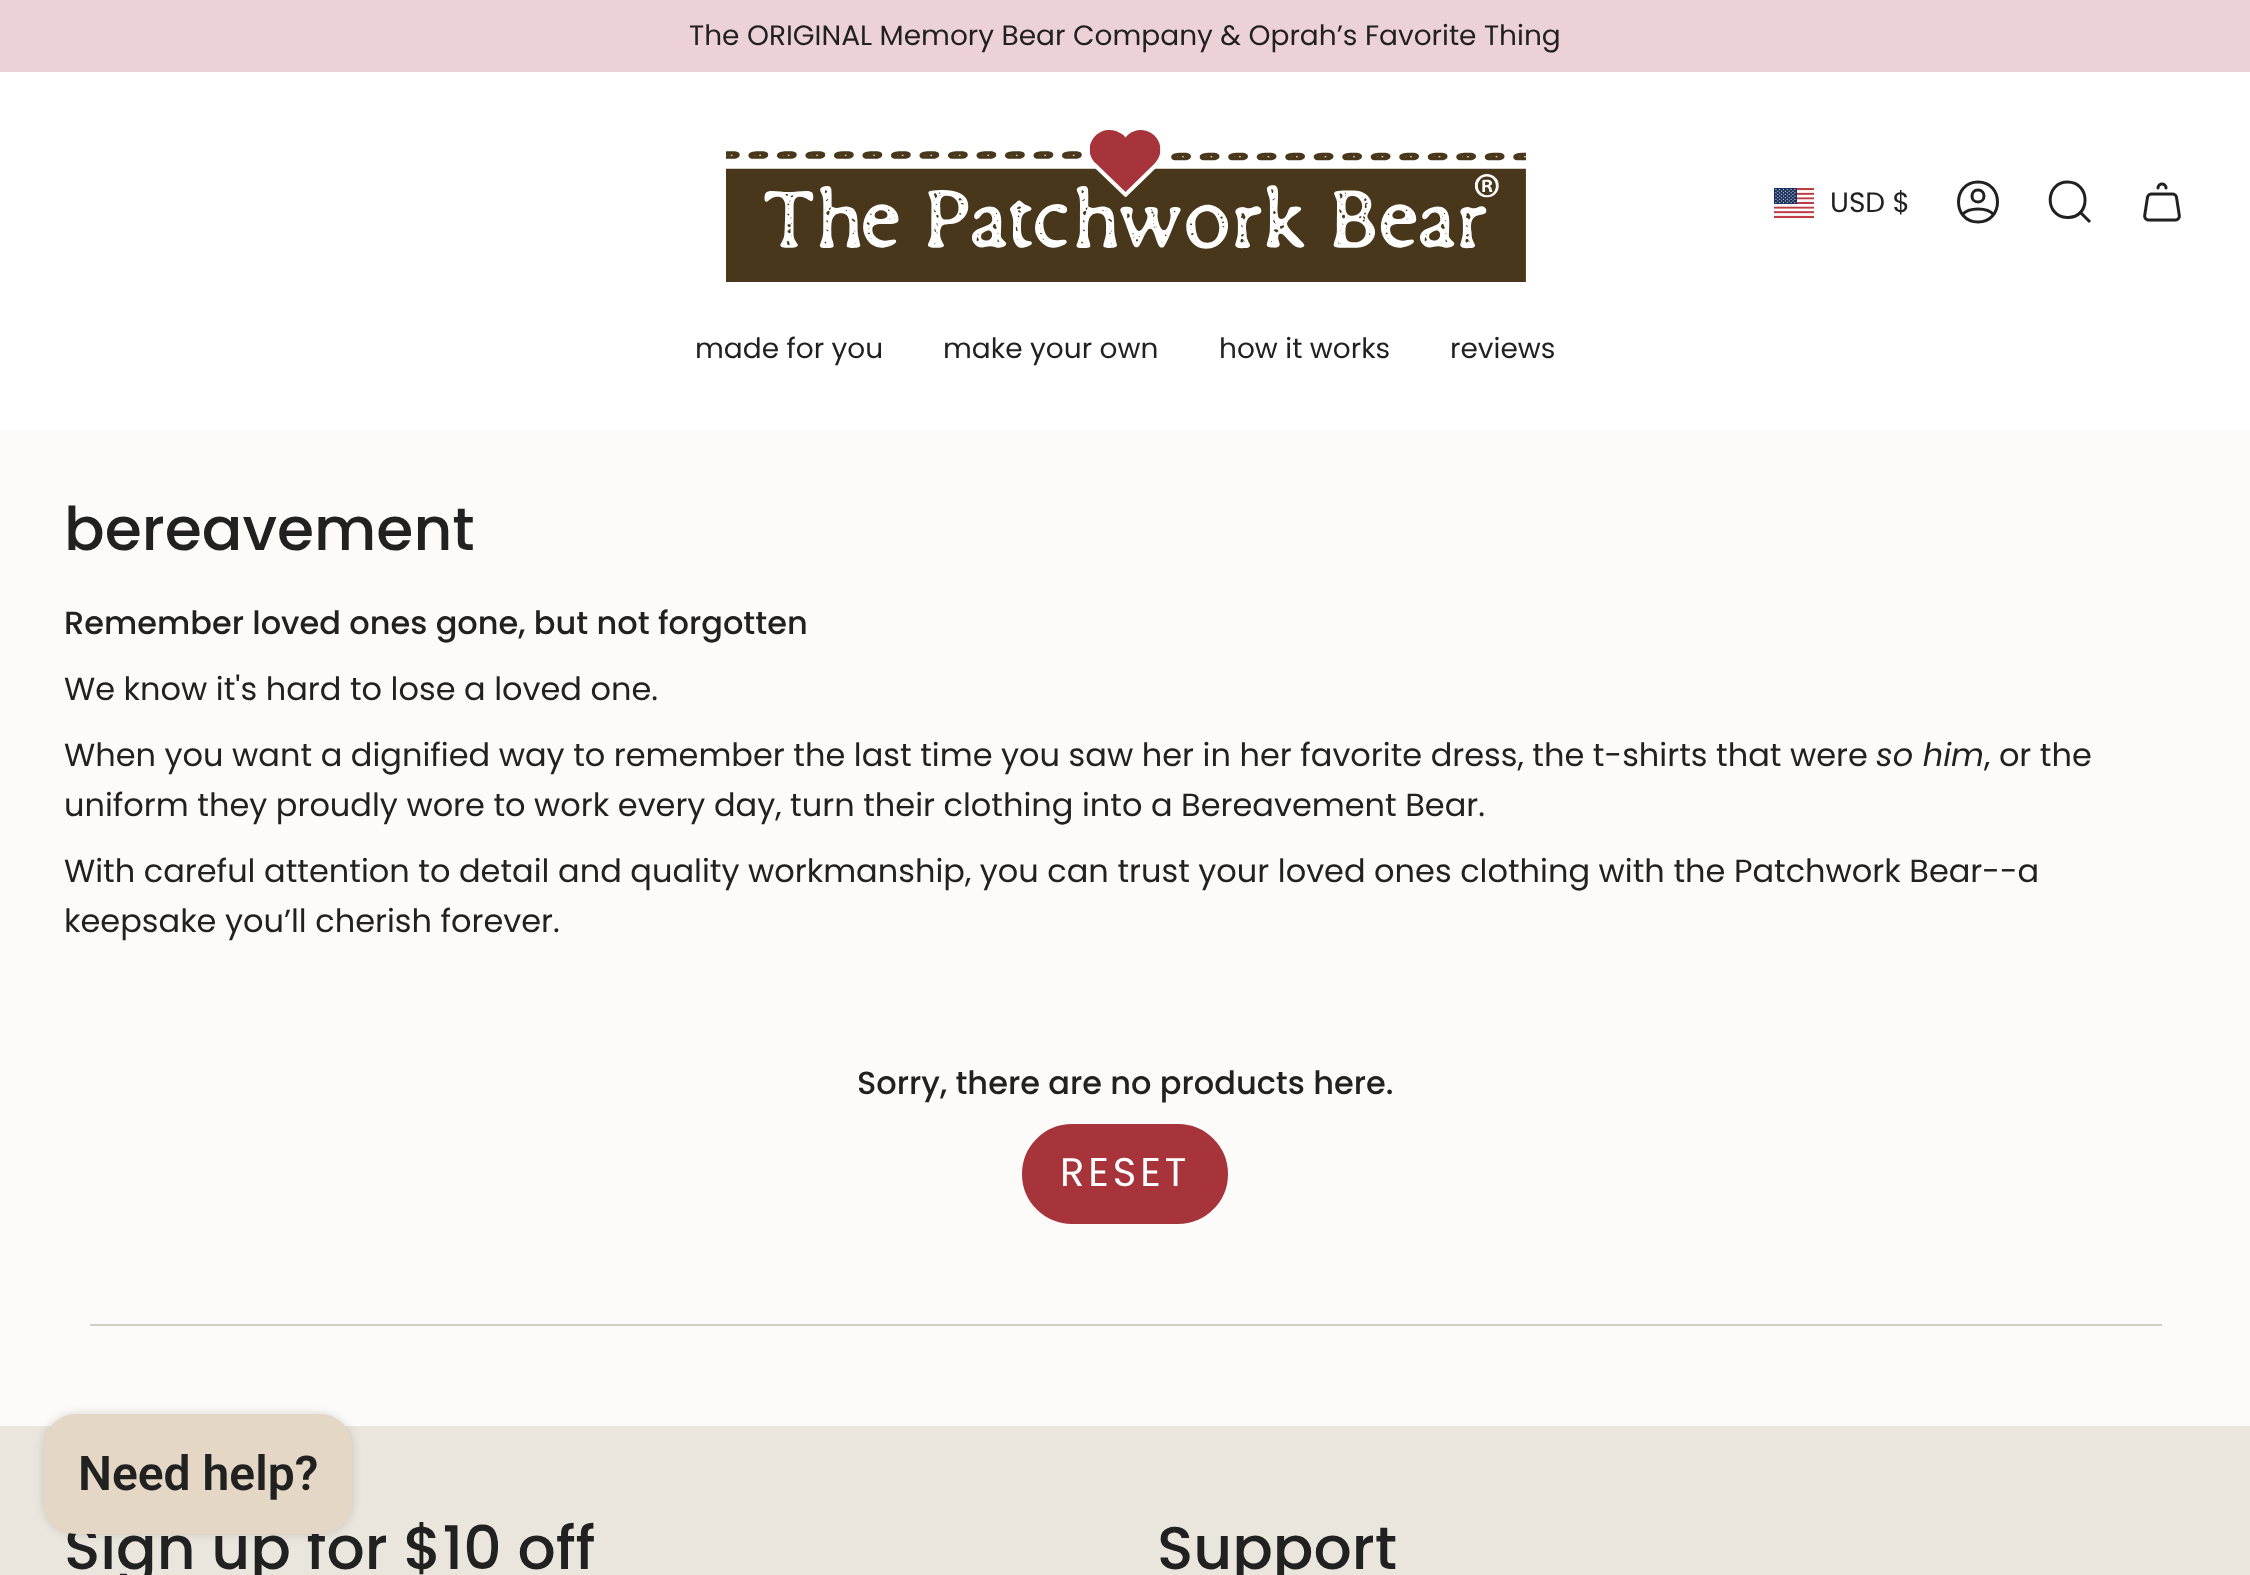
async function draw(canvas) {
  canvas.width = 2250
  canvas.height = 1575
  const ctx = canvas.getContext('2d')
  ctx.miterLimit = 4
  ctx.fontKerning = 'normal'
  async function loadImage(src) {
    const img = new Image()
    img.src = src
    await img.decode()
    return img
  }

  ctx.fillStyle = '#fcfbf9'
  ctx.fillRect(0, 0, 2250, 1575)
  ctx.fillStyle = '#ecd1d6'
  ctx.fillRect(0, 0, 2250, 72)
  ctx.font = '28px Poppins'
  ctx.fillStyle = '#212121'
  ctx.fillText('The ORIGINAL Memory Bear Company & Oprah’s Favorite Thing', 689, 45)
  ctx.fillStyle = '#fff'
  ctx.fillRect(0, 72, 2250, 358)
  ctx.drawImage(await loadImage('image0.png'), 726, 130, 800, 152)
  ctx.drawImage(await loadImage('image1.png'), 1774, 188, 40, 30)
  ctx.fillStyle = '#212121'
  ctx.fillText('USD $', 1830, 212)
  ctx.beginPath()
  ctx.moveTo(1978, 182)
  ctx.bezierCurveTo(1952, 182, 1952, 222, 1978, 222)
  ctx.bezierCurveTo(2004, 222, 2004, 182, 1978, 182)
  ctx.closePath()
  ctx.moveTo(1962.5, 214.5)
  ctx.bezierCurveTo(1968.5, 207, 1987.5, 207, 1993.5, 214.5)
  ctx.moveTo(1978, 202)
  ctx.bezierCurveTo(1986, 202, 1986, 190, 1978, 190)
  ctx.bezierCurveTo(1970, 190, 1970, 202, 1978, 202)
  ctx.closePath()
  ctx.strokeStyle = '#212121'
  ctx.lineWidth = 3
  ctx.lineCap = 'round'
  ctx.lineJoin = 'round'
  ctx.stroke()
  ctx.beginPath()
  ctx.moveTo(2067.5, 182)
  ctx.bezierCurveTo(2091, 182, 2091, 218.5, 2067, 217.5)
  ctx.bezierCurveTo(2044, 216.5, 2045, 182, 2067.5, 182)
  ctx.closePath()
  ctx.moveTo(2080, 212)
  ctx.lineTo(2090, 222)
  ctx.lineCap = 'butt'
  ctx.lineJoin = 'miter'
  ctx.stroke()
  ctx.drawImage(await loadImage('image2.png'), 2143, 182, 38, 40)
  ctx.fillText('made for you', 695, 358)
  ctx.fillText('make your own', 943, 358)
  ctx.fillText('how it works', 1219, 358)
  ctx.fillText('reviews', 1450, 358)
  ctx.font = '500 60px Poppins'
  ctx.fillText('bereavement', 64, 550)
  ctx.font = '500 32px Poppins'
  ctx.fillText('Remember loved ones gone, but not forgotten', 64, 634)
  ctx.font = '32px Poppins'
  ctx.fillText('We know it\'s hard to lose a loved one.', 64, 700)
  ctx.fillText('When you want a dignified way to remember the last time you saw her in her favorite dress, the t-shirts that were', 64, 766)
  ctx.font = 'italic 32px Poppins'
  ctx.fillText('so him', 1876, 766)
  ctx.font = '32px Poppins'
  ctx.fillText(', or the', 1984, 766)
  ctx.fillText('uniform they proudly wore to work every day, turn their clothing into a Bereavement Bear.', 64, 816)
  ctx.fillText('With careful attention to detail and quality workmanship, you can trust your loved ones clothing with the Patchwork Bear--a', 64, 882)
  ctx.fillText('keepsake you’ll cherish forever.', 64, 932)
  ctx.font = '500 32px Poppins'
  ctx.fillText('Sorry, there are no products here.', 857, 1094)
  ctx.fillStyle = '#a6343a'
  ctx.beginPath()
  ctx.roundRect(1023, 1125, 204, 98, 49)
  ctx.fill()
  ctx.strokeStyle = '#a6343a'
  ctx.lineWidth = 2
  ctx.stroke()
  ctx.letterSpacing = '4px'
  ctx.font = '40px Poppins'
  ctx.fillStyle = '#fff'
  ctx.fillText('RESET', 1060, 1186)
  ctx.fillStyle = '#d1cdc4'
  ctx.fillRect(90, 1324, 2072, 2)
  ctx.fillStyle = '#eae6dd'
  ctx.fillRect(0, 1426, 2250, 149)
  ctx.fillStyle = '#00000026'
  ctx.filter = 'blur(5px)'
  ctx.beginPath()
  ctx.roundRect(44, 1414, 308, 120, 32)
  ctx.fill()
  ctx.filter = 'none'
  ctx.letterSpacing = '0px'
  ctx.font = '500 60px Poppins'
  ctx.fillStyle = '#212121'
  ctx.fillText('Sign up for $10 off', 64, 1569)
  ctx.fillStyle = '#e4d7c5'
  ctx.beginPath()
  ctx.roundRect(44, 1414, 308, 120, 32)
  ctx.fill()
  ctx.font = '600 48px Roboto'
  ctx.fillStyle = '#212121'
  ctx.fillText('Need help?', 78, 1490)
  ctx.font = '500 60px Poppins'
  ctx.fillText('Support', 1157, 1569)
}

draw(document.querySelector('canvas'))
